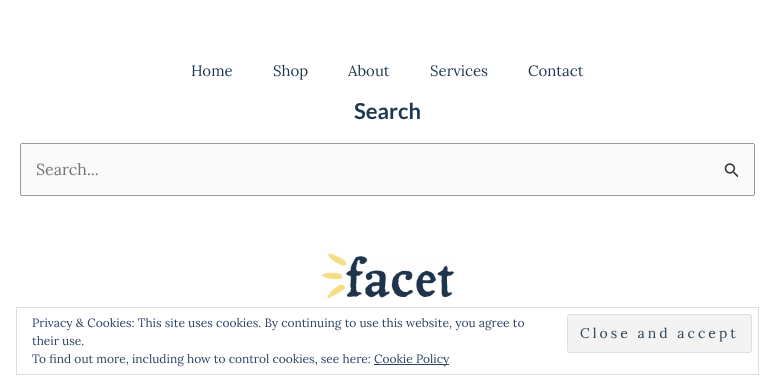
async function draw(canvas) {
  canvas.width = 775
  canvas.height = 391
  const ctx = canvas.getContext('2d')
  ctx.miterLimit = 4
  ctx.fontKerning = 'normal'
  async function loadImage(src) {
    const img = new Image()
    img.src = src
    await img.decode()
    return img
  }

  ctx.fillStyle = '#fff'
  ctx.fillRect(0, 0, 775, 391)
  ctx.font = '15px Lora'
  ctx.fillStyle = '#1e3851'
  ctx.fillText('Home', 191, 76)
  ctx.fillText('Shop', 273, 76)
  ctx.fillText('About', 348, 76)
  ctx.fillText('Services', 430, 76)
  ctx.fillText('Contact', 528, 76)
  ctx.font = 'bold 22px Lato'
  ctx.fillText('Search', 354, 119)
  ctx.fillStyle = '#fafafa'
  ctx.beginPath()
  ctx.roundRect(20.5, 143.5, 734, 52, 1.5)
  ctx.fill()
  ctx.strokeStyle = '#989898'
  ctx.stroke()
  ctx.font = '16px Lora'
  ctx.fillStyle = '#757575'
  ctx.fillText('Search...', 36, 175)
  ctx.drawImage(await loadImage('image0.png'), 724, 163, 14, 15)
  ctx.drawImage(await loadImage('image1.png'), 322, 253, 132, 46)
  ctx.strokeStyle = '#dedede'
  ctx.strokeRect(16.5, 307.5, 742, 67)
  ctx.font = '12px Lora'
  ctx.fillStyle = '#2e4467'
  ctx.fillText('Privacy & Cookies: This site uses cookies. By continuing to use this website, you agree to', 32, 327)
  ctx.fillText('their use.', 32, 345)
  ctx.fillStyle = '#f3f3f3'
  ctx.beginPath()
  ctx.roundRect(567.5, 314.5, 184, 38, 2.5)
  ctx.fill()
  ctx.stroke()
  ctx.letterSpacing = '3px'
  ctx.font = '14px Lora'
  ctx.fillStyle = '#2e4453'
  ctx.fillText('Close and accept', 580, 338)
  ctx.letterSpacing = '0px'
  ctx.font = '12px Lora'
  ctx.fillStyle = '#2e4467'
  ctx.fillText('To find out more, including how to control cookies, see here:', 32, 363)
  ctx.fillRect(374, 364, 75, 1)
  ctx.fillText('Cookie Policy', 374, 363)
}

draw(document.querySelector('canvas'))
